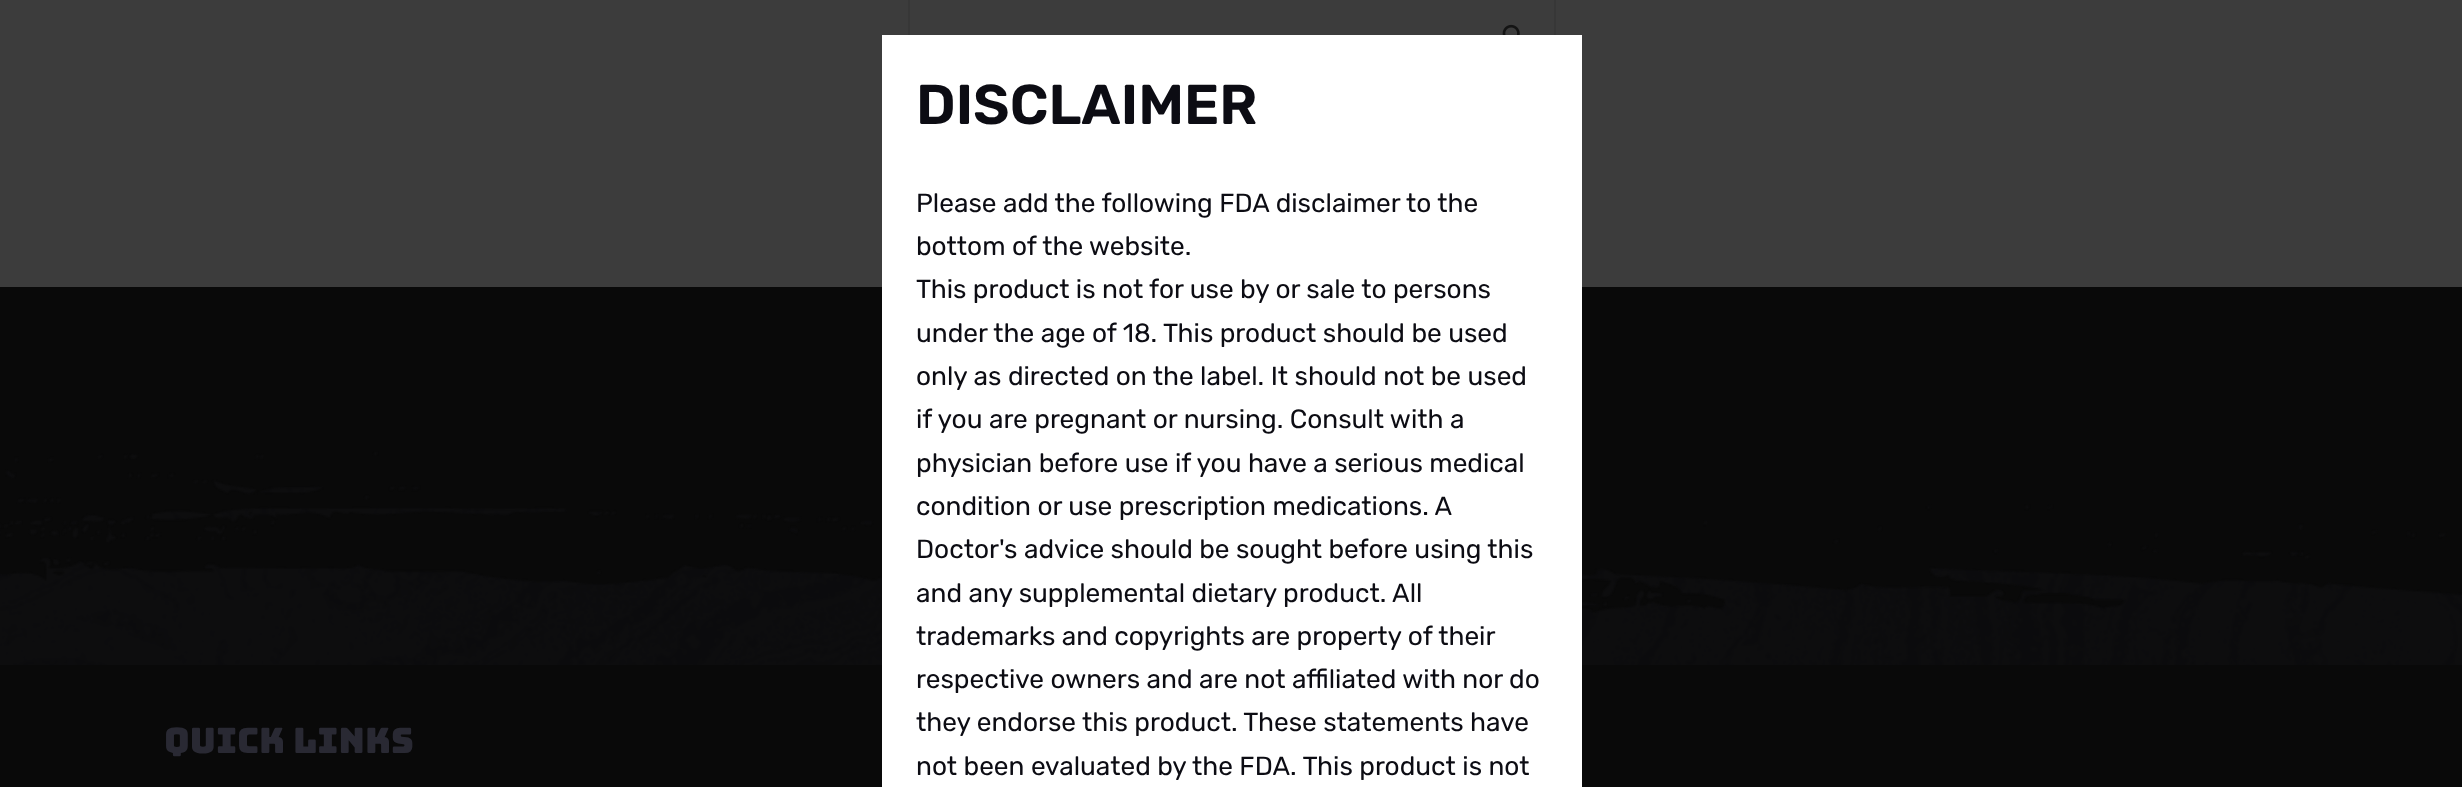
async function draw(canvas) {
  canvas.width = 2462
  canvas.height = 787
  const ctx = canvas.getContext('2d')
  ctx.miterLimit = 4
  ctx.fontKerning = 'normal'
  async function loadImage(src) {
    const img = new Image()
    img.src = src
    await img.decode()
    return img
  }

  ctx.fillStyle = '#3c3c3c'
  ctx.fillRect(0, 0, 2462, 787)
  ctx.strokeStyle = '#373737'
  ctx.lineWidth = 2
  ctx.strokeRect(909, -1, 646, 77)
  ctx.drawImage(await loadImage('image0.png'), 1502, 24, 18, 11)
  ctx.fillStyle = '#090909'
  ctx.fillRect(0, 287, 2462, 326)
  ctx.drawImage(await loadImage('image1.png'), 0, 451, 2462, 214)
  ctx.fillRect(0, 665, 2462, 122)
  ctx.font = '35px Bungee'
  ctx.fillStyle = '#292933'
  ctx.fillText('QUICK LiNKS', 164, 753)
  ctx.fillStyle = '#fff'
  ctx.fillRect(882, 35, 700, 752)
  ctx.font = '600 56px Rubik'
  ctx.fillStyle = '#0c0c13'
  ctx.fillText('DISCLAIMER', 916, 124)
  ctx.font = '26.25px Rubik'
  ctx.fillText('Please add the following FDA disclaimer to the', 916, 212)
  ctx.fillText('bottom of the website.', 916, 255)
  ctx.fillText('This product is not for use by or sale to persons', 916, 298)
  ctx.fillText('under the age of 18. This product should be used', 916, 342)
  ctx.fillText('only as directed on the label. It should not be used', 916, 385)
  ctx.fillText('if you are pregnant or nursing. Consult with a', 916, 428)
  ctx.fillText('physician before use if you have a serious medical', 916, 472)
  ctx.fillText('condition or use prescription medications. A', 916, 515)
  ctx.fillText('Doctor\'s advice should be sought before using this', 916, 558)
  ctx.fillText('and any supplemental dietary product. All', 916, 602)
  ctx.fillText('trademarks and copyrights are property of their', 916, 645)
  ctx.fillText('respective owners and are not affiliated with nor do', 916, 688)
  ctx.fillText('they endorse this product. These statements have', 916, 731)
  ctx.fillText('not been evaluated by the FDA. This product is not', 916, 775)
}

draw(document.querySelector('canvas'))
